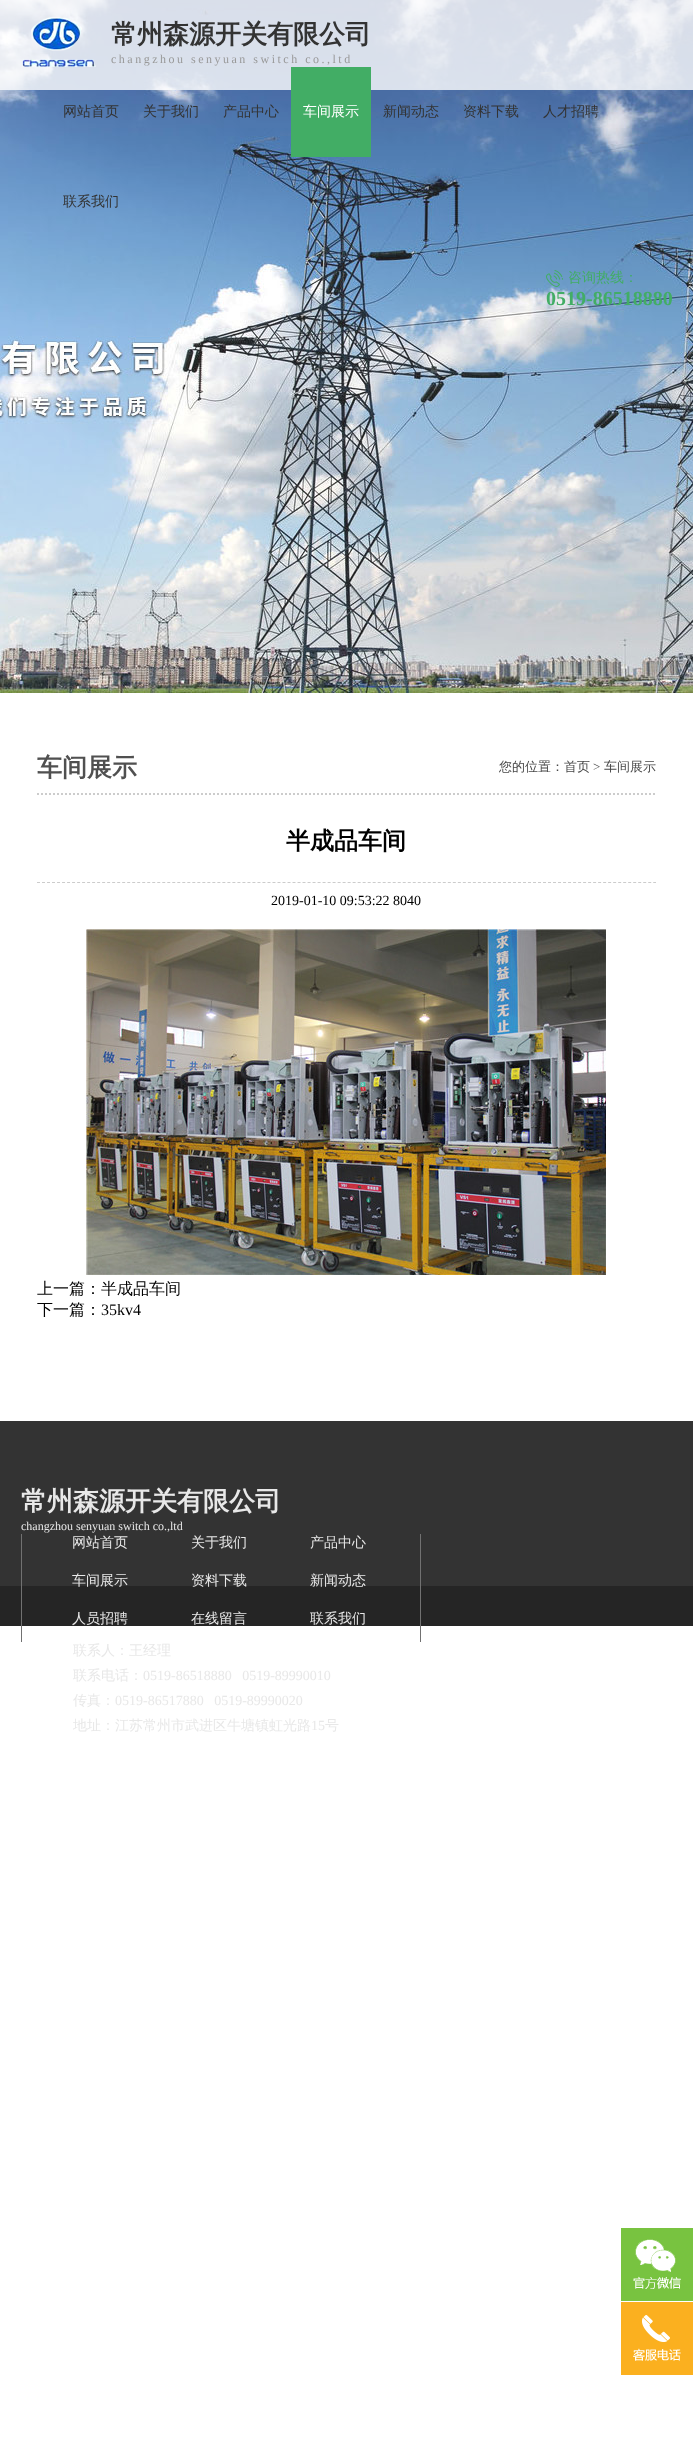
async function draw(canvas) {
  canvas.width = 693
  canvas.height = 2459
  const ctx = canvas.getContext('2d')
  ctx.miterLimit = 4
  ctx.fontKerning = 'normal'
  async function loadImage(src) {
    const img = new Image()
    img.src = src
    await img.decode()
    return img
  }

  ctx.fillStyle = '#fff'
  ctx.fillRect(0, 0, 693, 2459)
  ctx.drawImage(await loadImage('image0.png'), 0, 0, 693, 693)
  ctx.fillStyle = '#ffffffcc'
  ctx.fillRect(0, 0, 693, 90)
  ctx.drawImage(await loadImage('image1.png'), 22, 17, 74, 50)
  ctx.font = 'bold 26px WenQuanYi Zen Hei'
  ctx.fillStyle = '#333'
  ctx.fillText('常州森源开关有限公司', 111, 43)
  ctx.letterSpacing = '2.5px'
  ctx.font = '12px Liberation Serif'
  ctx.fillStyle = '#999'
  ctx.fillText('changzhou senyuan switch co.,ltd', 111, 63)
  ctx.letterSpacing = '0px'
  ctx.font = '500 14px WenQuanYi Zen Hei'
  ctx.fillStyle = '#333'
  ctx.fillText('网站首页', 63, 116)
  ctx.fillText('关于我们', 143, 116)
  ctx.fillText('产品中心', 223, 116)
  ctx.fillStyle = '#42ad65'
  ctx.fillRect(291, 67, 80, 90)
  ctx.fillStyle = '#fff'
  ctx.fillText('车间展示', 303, 116)
  ctx.fillStyle = '#333'
  ctx.fillText('新闻动态', 383, 116)
  ctx.fillText('资料下载', 463, 116)
  ctx.fillText('人才招聘', 543, 116)
  ctx.fillText('联系我们', 63, 206)
  ctx.drawImage(await loadImage('image2.png'), 546, 270, 17, 17)
  ctx.fillStyle = '#42ad65'
  ctx.fillText('咨询热线：', 568, 282)
  ctx.font = 'bold 20px Liberation Serif'
  ctx.fillText('0519-86518880', 546, 305)
  ctx.beginPath()
  ctx.moveTo(37, 794)
  ctx.lineTo(656, 794)
  ctx.strokeStyle = '#ccc'
  ctx.lineWidth = 2
  ctx.setLineDash([2, 2])
  ctx.stroke()
  ctx.font = 'bold 25px WenQuanYi Zen Hei'
  ctx.fillStyle = '#505050'
  ctx.fillText('车间展示', 37, 776)
  ctx.font = '500 13px WenQuanYi Zen Hei'
  ctx.fillStyle = '#484848'
  ctx.fillText('您的位置：首页', 499, 771)
  ctx.font = '13px Liberation Serif'
  ctx.fillText('>', 593, 771)
  ctx.font = '500 13px WenQuanYi Zen Hei'
  ctx.fillText('车间展示', 604, 771)
  ctx.beginPath()
  ctx.moveTo(37, 882.5)
  ctx.lineTo(656, 882.5)
  ctx.lineWidth = 1
  ctx.setLineDash([3, 2.01])
  ctx.stroke()
  ctx.font = 'bold 24px WenQuanYi Zen Hei'
  ctx.fillStyle = '#000'
  ctx.fillText('半成品车间', 286, 849)
  ctx.font = '14px Liberation Serif'
  ctx.fillText('2019-01-10 09:53:22 8040', 271, 905)
  ctx.drawImage(await loadImage('image3.png'), 86, 929, 520, 346)
  ctx.font = '500 16px WenQuanYi Zen Hei'
  ctx.fillText('上一篇：半成品车间', 37, 1294)
  ctx.fillText('下一篇：', 37, 1315)
  ctx.font = '16px Liberation Serif'
  ctx.fillText('35kv4', 101, 1315)
  ctx.fillStyle = '#333'
  ctx.fillRect(0, 1421, 693, 165)
  ctx.font = 'bold 26px WenQuanYi Zen Hei'
  ctx.fillStyle = '#e8e8e8'
  ctx.fillText('常州森源开关有限公司', 21, 1510)
  ctx.font = '12px Liberation Serif'
  ctx.fillText('changzhou senyuan switch co.,ltd', 21, 1530)
  ctx.fillStyle = '#252525'
  ctx.fillRect(0, 1586, 693, 40)
  ctx.fillStyle = '#717171'
  ctx.fillRect(420, 1534, 1, 108)
  ctx.fillRect(21, 1534, 1, 108)
  ctx.font = '500 14px WenQuanYi Zen Hei'
  ctx.fillStyle = '#e8e8e8'
  ctx.fillText('网站首页', 72, 1547)
  ctx.fillText('关于我们', 191, 1547)
  ctx.fillText('产品中心', 310, 1547)
  ctx.fillText('车间展示', 72, 1585)
  ctx.fillText('资料下载', 191, 1585)
  ctx.fillText('新闻动态', 310, 1585)
  ctx.fillText('人员招聘', 72, 1623)
  ctx.fillText('在线留言', 191, 1623)
  ctx.fillText('联系我们', 310, 1623)
  ctx.fillText('联系人：王经理', 73, 1655)
  ctx.fillText('联系电话：', 73, 1680)
  ctx.font = '14px Liberation Serif'
  ctx.fillText('0519-86518880   0519-89990010', 143, 1680)
  ctx.font = '500 14px WenQuanYi Zen Hei'
  ctx.fillText('传真：', 73, 1705)
  ctx.font = '14px Liberation Serif'
  ctx.fillText('0519-86517880   0519-89990020', 115, 1705)
  ctx.font = '500 14px WenQuanYi Zen Hei'
  ctx.fillText('地址：江苏常州市武进区牛塘镇虹光路', 73, 1730)
  ctx.font = '14px Liberation Serif'
  ctx.fillText('15', 311, 1730)
  ctx.font = '500 14px WenQuanYi Zen Hei'
  ctx.fillText('号', 325, 1730)
  ctx.fillStyle = '#78c340'
  ctx.fillRect(621, 2228, 72, 73)
  ctx.drawImage(await loadImage('image4.png'), 633, 2239, 48, 50)
  ctx.fillStyle = '#fbb01f'
  ctx.fillRect(621, 2302, 72, 73)
  ctx.drawImage(await loadImage('image5.png'), 633, 2315, 48, 46)
}

draw(document.querySelector('canvas'))
